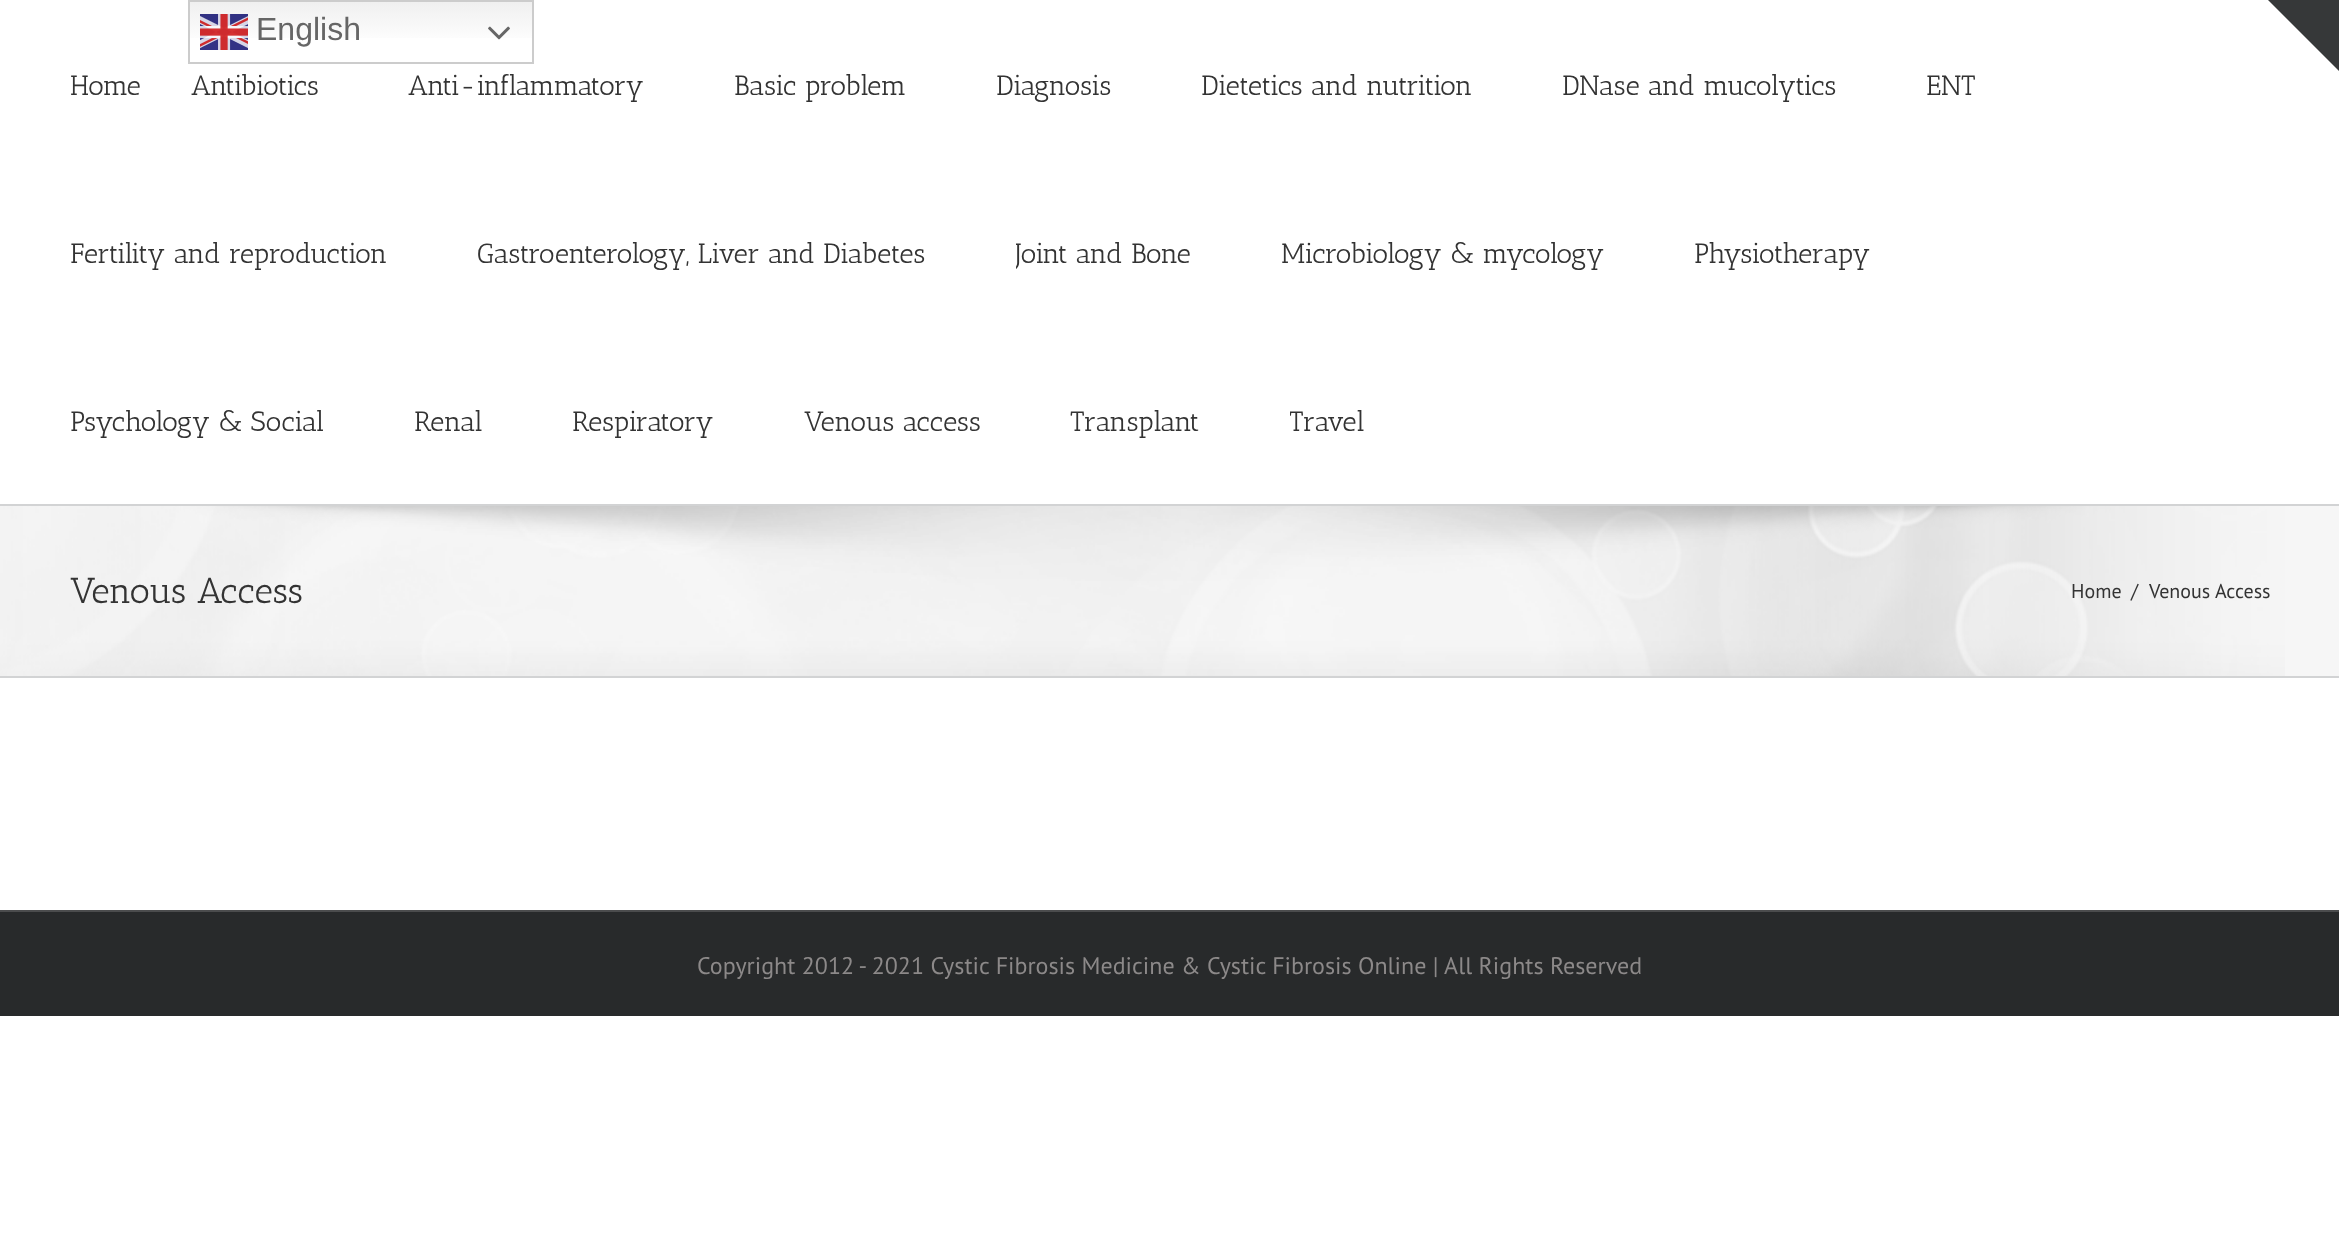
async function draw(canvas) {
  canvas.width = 2339
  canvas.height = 1246
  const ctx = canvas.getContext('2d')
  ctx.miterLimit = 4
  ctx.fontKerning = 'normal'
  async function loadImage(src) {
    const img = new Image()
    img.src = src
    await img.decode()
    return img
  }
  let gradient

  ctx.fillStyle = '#fff'
  ctx.fillRect(0, 0, 2339, 1246)
  gradient = ctx.createLinearGradient(361, 0, 361, 64)
  gradient.addColorStop(0, '#efefef')
  gradient.addColorStop(0.7, '#fff')
  ctx.fillStyle = gradient
  ctx.fillRect(190, 2, 342, 36)
  ctx.strokeStyle = '#ccc'
  ctx.lineWidth = 2
  ctx.strokeRect(189, 1, 344, 62)
  ctx.drawImage(await loadImage('image0.png'), 200, 14, 48, 36)
  ctx.font = '32px Liberation Sans'
  ctx.fillStyle = '#666'
  ctx.fillText('English', 256, 40)
  ctx.drawImage(await loadImage('image1.png'), 488, 26, 22, 14)
  ctx.fillStyle = '#363839'
  ctx.beginPath()
  ctx.moveTo(2268, 0)
  ctx.lineTo(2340, 0)
  ctx.lineTo(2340, 72)
  ctx.closePath()
  ctx.fill()
  ctx.font = '28px Antic Slab'
  ctx.fillStyle = '#333'
  ctx.fillText('Home', 70, 95)
  ctx.fillText('Antibiotics', 191, 95)
  ctx.fillText('Anti-inflammatory', 408, 95)
  ctx.fillText('Basic problem', 734, 95)
  ctx.fillText('Diagnosis', 996, 95)
  ctx.fillText('Dietetics and nutrition', 1201, 95)
  ctx.fillText('DNase and mucolytics', 1562, 95)
  ctx.fillText('ENT', 1926, 95)
  ctx.fillText('Fertility and reproduction', 70, 263)
  ctx.fillText('Gastroenterology, Liver and Diabetes', 477, 263)
  ctx.save()
  ctx.beginPath()
  ctx.rect(1016, 168, 264, 168)
  ctx.clip()
  ctx.fillText('Joint and Bone', 1015, 263)
  ctx.restore()
  ctx.fillText('Microbiology & mycology', 1281, 263)
  ctx.fillText('Physiotherapy', 1694, 263)
  ctx.fillText('Psychology & Social', 70, 431)
  ctx.fillText('Renal', 414, 431)
  ctx.fillText('Respiratory', 572, 431)
  ctx.fillText('Venous access', 804, 431)
  ctx.fillText('Transplant', 1070, 431)
  ctx.save()
  ctx.beginPath()
  ctx.rect(1290, 336, 164, 168)
  ctx.clip()
  ctx.fillText('Travel', 1289, 431)
  ctx.restore()
  ctx.fillStyle = '#f6f6f6'
  ctx.fillRect(0, 506, 2339, 170)
  ctx.drawImage(await loadImage('image2.png'), 0, 506, 2285, 170)
  ctx.fillStyle = '#d2d3d4'
  ctx.fillRect(0, 504, 2339, 2)
  ctx.fillRect(0, 676, 2339, 2)
  ctx.font = '36px Antic Slab'
  ctx.fillStyle = '#333'
  ctx.fillText('Venous Access', 70, 603)
  ctx.font = '20px PT Sans'
  ctx.fillText('Home', 2071, 598)
  ctx.fillText('/', 2131, 598)
  ctx.fillText('Venous Access', 2149, 598)
  ctx.fillStyle = '#282a2b'
  ctx.fillRect(0, 912, 2339, 104)
  ctx.fillStyle = '#4b4c4d'
  ctx.fillRect(0, 910, 2339, 2)
  ctx.font = '24px PT Sans'
  ctx.fillStyle = '#8c8989'
  ctx.fillText('Copyright 2012 - 2021 Cystic Fibrosis Medicine & Cystic Fibrosis Online | All Rights Reserved', 697, 974)
}

draw(document.querySelector('canvas'))
